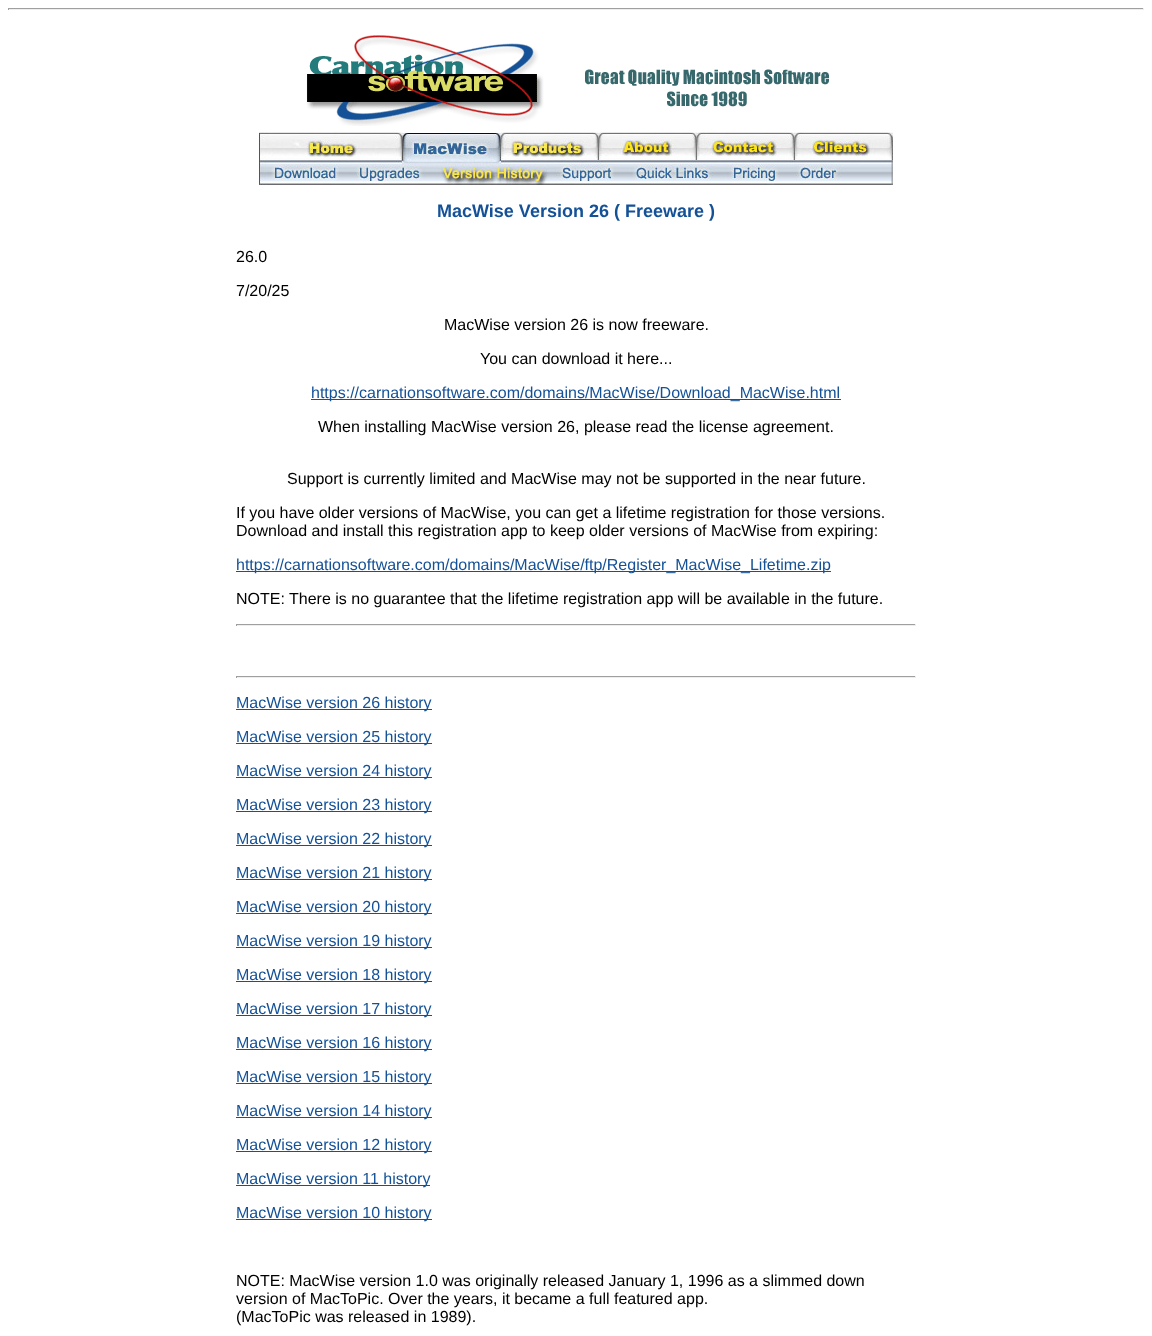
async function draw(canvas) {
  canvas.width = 1152
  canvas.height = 1336
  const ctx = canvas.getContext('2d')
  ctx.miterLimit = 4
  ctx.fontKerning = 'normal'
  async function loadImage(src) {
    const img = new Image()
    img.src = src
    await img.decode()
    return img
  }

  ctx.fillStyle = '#fff'
  ctx.fillRect(0, 0, 1152, 1336)
  ctx.fillStyle = '#9f9f9f'
  ctx.fillRect(8, 8, 1136, 1)
  ctx.fillStyle = '#eee'
  ctx.fillRect(1143, 8, 1, 2)
  ctx.fillRect(8, 9, 1136, 1)
  ctx.fillStyle = '#9f9f9f'
  ctx.fillRect(8, 8, 1, 2)
  ctx.drawImage(await loadImage('image0.png'), 306, 35, 523, 91)
  ctx.drawImage(await loadImage('image1.png'), 259, 132, 634, 53)
  ctx.font = 'bold 18px Liberation Sans'
  ctx.fillStyle = '#145197'
  ctx.fillText('MacWise Version 26 ( Freeware )', 437, 217)
  ctx.font = '16px Liberation Sans'
  ctx.fillStyle = '#000'
  ctx.fillText('26.0', 236, 262)
  ctx.fillText('7/20/25', 236, 296)
  ctx.fillText('MacWise version 26 is now freeware.', 444, 330)
  ctx.fillText('You can download it here...', 480, 364)
  ctx.fillStyle = '#145197'
  ctx.fillRect(311, 399, 530, 1)
  ctx.fillText('https://carnationsoftware.com/domains/MacWise/Download_MacWise.html', 311, 398)
  ctx.fillStyle = '#000'
  ctx.fillText('When installing MacWise version 26, please read the license agreement.', 318, 432)
  ctx.fillText('Support is currently limited and MacWise may not be supported in the near future.', 287, 484)
  ctx.fillText('If you have older versions of MacWise, you can get a lifetime registration for those versions.', 236, 518)
  ctx.fillText('Download and install this registration app to keep older versions of MacWise from expiring:', 236, 536)
  ctx.fillStyle = '#145197'
  ctx.fillRect(236, 571, 595, 1)
  ctx.fillText('https://carnationsoftware.com/domains/MacWise/ftp/Register_MacWise_Lifetime.zip', 236, 570)
  ctx.fillStyle = '#000'
  ctx.fillText('NOTE: There is no guarantee that the lifetime registration app will be available in the future.', 236, 604)
  ctx.fillStyle = '#9f9f9f'
  ctx.fillRect(236, 624, 680, 1)
  ctx.fillStyle = '#eee'
  ctx.fillRect(915, 624, 1, 2)
  ctx.fillRect(236, 625, 680, 1)
  ctx.fillStyle = '#9f9f9f'
  ctx.fillRect(236, 624, 1, 2)
  ctx.fillRect(236, 676, 680, 1)
  ctx.fillStyle = '#eee'
  ctx.fillRect(915, 676, 1, 2)
  ctx.fillRect(236, 677, 680, 1)
  ctx.fillStyle = '#9f9f9f'
  ctx.fillRect(236, 676, 1, 2)
  ctx.fillStyle = '#145197'
  ctx.fillRect(236, 709, 196, 1)
  ctx.fillText('MacWise version 26 history', 236, 708)
  ctx.fillRect(236, 743, 196, 1)
  ctx.fillText('MacWise version 25 history', 236, 742)
  ctx.fillRect(236, 777, 196, 1)
  ctx.fillText('MacWise version 24 history', 236, 776)
  ctx.fillRect(236, 811, 196, 1)
  ctx.fillText('MacWise version 23 history', 236, 810)
  ctx.fillRect(236, 845, 196, 1)
  ctx.fillText('MacWise version 22 history', 236, 844)
  ctx.fillRect(236, 879, 196, 1)
  ctx.fillText('MacWise version 21 history', 236, 878)
  ctx.fillRect(236, 913, 196, 1)
  ctx.fillText('MacWise version 20 history', 236, 912)
  ctx.fillRect(236, 947, 196, 1)
  ctx.fillText('MacWise version 19 history', 236, 946)
  ctx.fillRect(236, 981, 196, 1)
  ctx.fillText('MacWise version 18 history', 236, 980)
  ctx.fillRect(236, 1015, 196, 1)
  ctx.fillText('MacWise version 17 history', 236, 1014)
  ctx.fillRect(236, 1049, 196, 1)
  ctx.fillText('MacWise version 16 history', 236, 1048)
  ctx.fillRect(236, 1083, 196, 1)
  ctx.fillText('MacWise version 15 history', 236, 1082)
  ctx.fillRect(236, 1117, 196, 1)
  ctx.fillText('MacWise version 14 history', 236, 1116)
  ctx.fillRect(236, 1151, 196, 1)
  ctx.fillText('MacWise version 12 history', 236, 1150)
  ctx.fillRect(236, 1185, 194, 1)
  ctx.fillText('MacWise version 11 history', 236, 1184)
  ctx.fillRect(236, 1219, 196, 1)
  ctx.fillText('MacWise version 10 history', 236, 1218)
  ctx.fillStyle = '#000'
  ctx.fillText('NOTE: MacWise version 1.0 was originally released January 1, 1996 as a slimmed down', 236, 1286)
  ctx.fillText('version of MacToPic. Over the years, it became a full featured app.', 236, 1304)
  ctx.fillText('(MacToPic was released in 1989).', 236, 1322)
}

draw(document.querySelector('canvas'))
